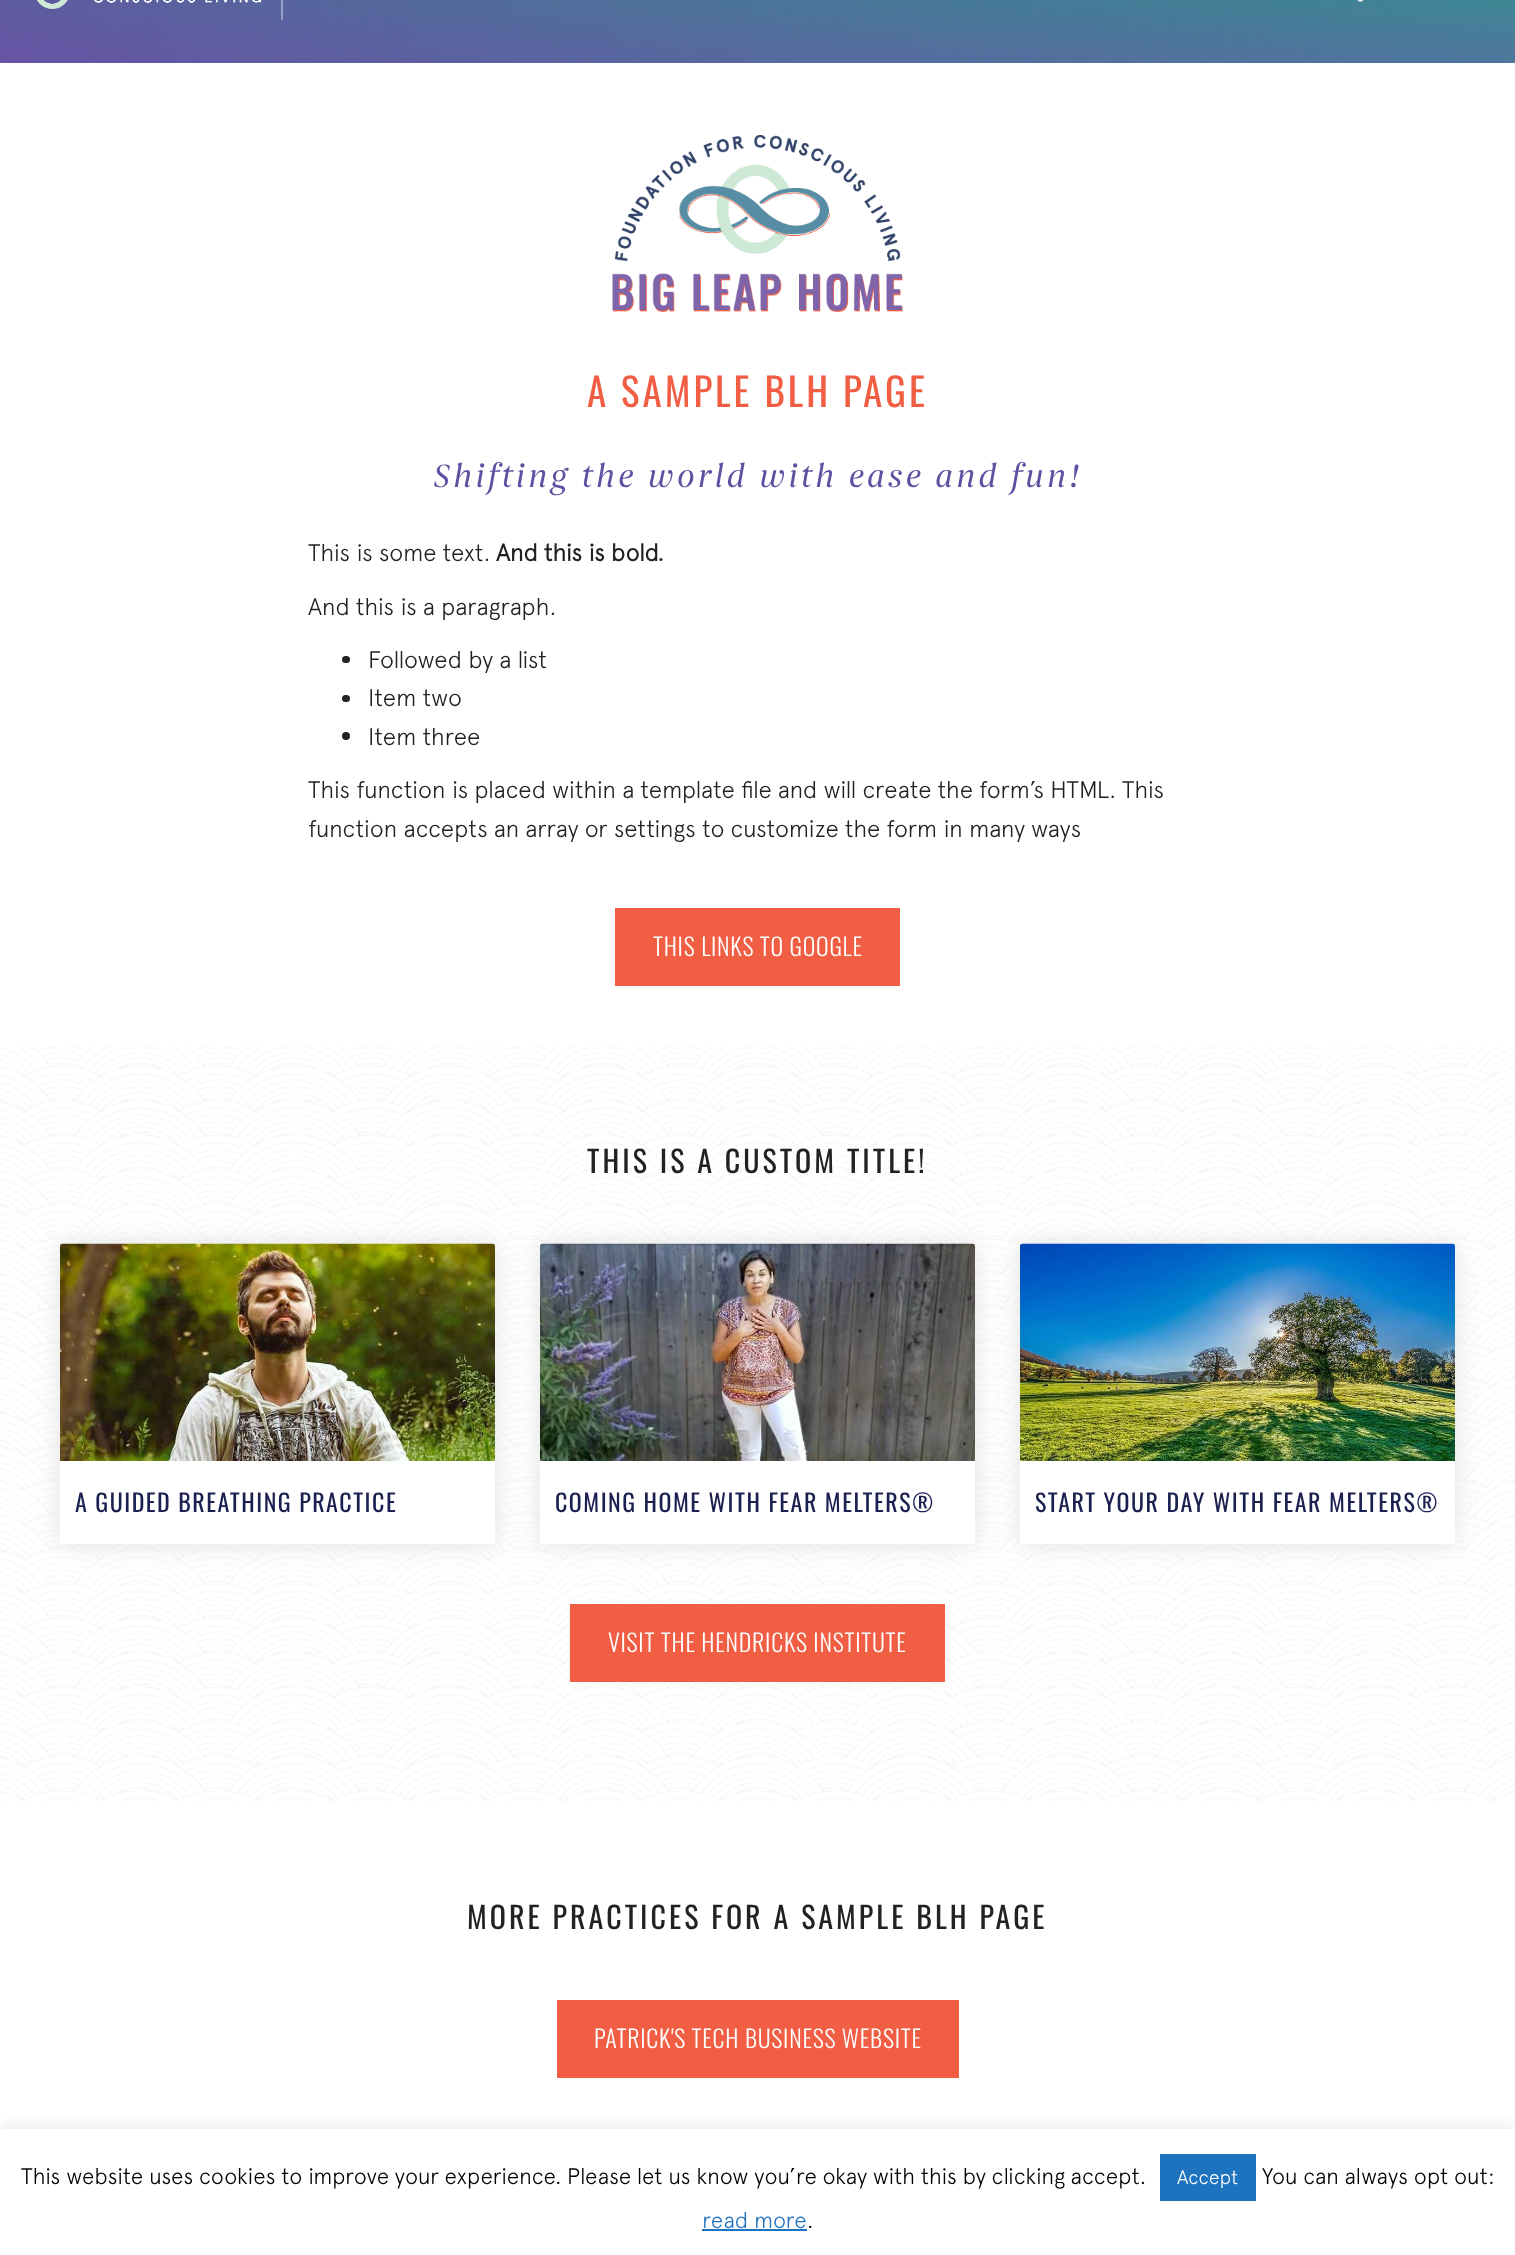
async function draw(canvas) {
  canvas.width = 1515
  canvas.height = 2255
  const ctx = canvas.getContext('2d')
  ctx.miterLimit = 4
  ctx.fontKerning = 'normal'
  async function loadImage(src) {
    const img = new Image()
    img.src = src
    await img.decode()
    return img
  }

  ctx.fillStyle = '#fff'
  ctx.fillRect(0, 0, 1515, 2255)
  ctx.drawImage(await loadImage('image0.png'), 0, 0, 1515, 63)
  ctx.fillStyle = '#ffffff61'
  ctx.fillRect(281, 0, 2, 20)
  ctx.drawImage(await loadImage('image1.png'), 37, 0, 225, 9)
  ctx.drawImage(await loadImage('image2.png'), 1357, 0, 7, 2)
  ctx.drawImage(await loadImage('image3.png'), 612, 135, 291, 177)
  ctx.letterSpacing = '3px'
  ctx.font = '39px Oswald'
  ctx.fillStyle = '#f15e44'
  ctx.fillText('A SAMPLE BLH PAGE', 587, 407)
  ctx.font = '33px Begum'
  ctx.fillStyle = '#6050a2'
  ctx.fillText('Shifting the world with ease and fun!', 433, 487)
  ctx.letterSpacing = '0px'
  ctx.font = '300 24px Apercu'
  ctx.fillStyle = '#222'
  ctx.fillText('This is some text.', 308, 561)
  ctx.font = 'bold 24px Apercu'
  ctx.fillText('And this is bold.', 496, 561)
  ctx.font = '300 24px Apercu'
  ctx.fillText('And this is a paragraph.', 308, 615)
  ctx.beginPath()
  ctx.roundRect(342, 656, 8, 7, 3.5)
  ctx.fill()
  ctx.fillText('Followed by a list', 368, 668)
  ctx.beginPath()
  ctx.roundRect(342, 695, 8, 7, 3.5)
  ctx.fill()
  ctx.fillText('Item two', 368, 706)
  ctx.beginPath()
  ctx.arc(346, 736, 4, 0, 2 * Math.PI)
  ctx.fill()
  ctx.fillText('Item three', 368, 745)
  ctx.fillText('This function is placed within a template file and will create the form’s HTML. This', 308, 798)
  ctx.fillText('function accepts an array or settings to customize the form in many ways', 308, 837)
  ctx.fillStyle = '#f15e44'
  ctx.fillRect(615, 908, 285, 78)
  ctx.letterSpacing = '0.75px'
  ctx.font = '300 24px Oswald'
  ctx.fillStyle = '#fff'
  ctx.fillText('THIS LINKS TO GOOGLE', 653, 956)
  ctx.drawImage(await loadImage('image4.png'), 0, 1046, 1515, 755)
  ctx.letterSpacing = '3px'
  ctx.font = '30px Oswald'
  ctx.fillStyle = '#222'
  ctx.fillText('THIS IS A CUSTOM TITLE!', 587, 1173)
  ctx.fillStyle = '#e1e1e1'
  ctx.filter = 'blur(12px)'
  ctx.beginPath()
  ctx.roundRect(60, 1244, 435, 300, 3)
  ctx.fill()
  ctx.filter = 'none'
  ctx.fillStyle = '#fff'
  ctx.beginPath()
  ctx.roundRect(60, 1244, 435, 300, 3)
  ctx.fill()
  ctx.drawImage(await loadImage('image5.png'), 60, 1243, 435, 218)
  ctx.letterSpacing = '1.5px'
  ctx.font = '24px Oswald'
  ctx.fillStyle = '#1a2050'
  ctx.fillText('A GUIDED BREATHING PRACTICE', 75, 1512)
  ctx.fillStyle = '#e1e1e1'
  ctx.filter = 'blur(12px)'
  ctx.beginPath()
  ctx.roundRect(540, 1244, 435, 300, 3)
  ctx.fill()
  ctx.filter = 'none'
  ctx.fillStyle = '#fff'
  ctx.beginPath()
  ctx.roundRect(540, 1244, 435, 300, 3)
  ctx.fill()
  ctx.drawImage(await loadImage('image6.png'), 540, 1243, 435, 218)
  ctx.fillStyle = '#1a2050'
  ctx.fillText('COMING HOME WITH FEAR MELTERS®', 555, 1512)
  ctx.fillStyle = '#e1e1e1'
  ctx.filter = 'blur(12px)'
  ctx.beginPath()
  ctx.roundRect(1020, 1244, 435, 300, 3)
  ctx.fill()
  ctx.filter = 'none'
  ctx.fillStyle = '#fff'
  ctx.beginPath()
  ctx.roundRect(1020, 1244, 435, 300, 3)
  ctx.fill()
  ctx.drawImage(await loadImage('image7.png'), 1020, 1243, 435, 218)
  ctx.fillStyle = '#1a2050'
  ctx.fillText('START YOUR DAY WITH FEAR MELTERS®', 1035, 1512)
  ctx.fillStyle = '#f15e44'
  ctx.fillRect(570, 1604, 375, 78)
  ctx.letterSpacing = '0.75px'
  ctx.font = '300 24px Oswald'
  ctx.fillStyle = '#fff'
  ctx.fillText('VISIT THE HENDRICKS INSTITUTE', 608, 1652)
  ctx.letterSpacing = '3px'
  ctx.font = '30px Oswald'
  ctx.fillStyle = '#222'
  ctx.fillText('MORE PRACTICES FOR A SAMPLE BLH PAGE', 467, 1929)
  ctx.fillStyle = '#f15e44'
  ctx.fillRect(557, 2000, 402, 78)
  ctx.letterSpacing = '0.75px'
  ctx.font = '300 24px Oswald'
  ctx.fillStyle = '#fff'
  ctx.fillText('PATRICK\'S TECH BUSINESS WEBSITE', 594, 2048)
  ctx.fillStyle = '#acabab4d'
  ctx.filter = 'blur(7.5px)'
  ctx.beginPath()
  ctx.rect(0, 2127, 1515, 128)
  ctx.fill()
  ctx.filter = 'none'
  ctx.fillStyle = '#fff'
  ctx.fillRect(0, 2129, 1515, 126)
  ctx.letterSpacing = '0px'
  ctx.font = '300 22.5px Apercu'
  ctx.fillStyle = '#000'
  ctx.fillText('This website uses cookies to improve your experience. Please let us know you’re okay with this by clicking accept.', 21, 2184)
  ctx.fillStyle = '#1e73be'
  ctx.fillRect(1160, 2154, 96, 47)
  ctx.font = '300 19.5px Apercu'
  ctx.fillStyle = '#fff'
  ctx.fillText('Accept', 1177, 2184)
  ctx.font = '300 22.5px Apercu'
  ctx.fillStyle = '#000'
  ctx.fillText('You can always opt out:', 1262, 2184)
  ctx.fillStyle = '#1e73be'
  ctx.fillText('read more', 702, 2228)
  ctx.fillRect(702, 2229, 105, 2)
  ctx.fillStyle = '#000'
  ctx.fillText('.', 807, 2228)
}

draw(document.querySelector('canvas'))
